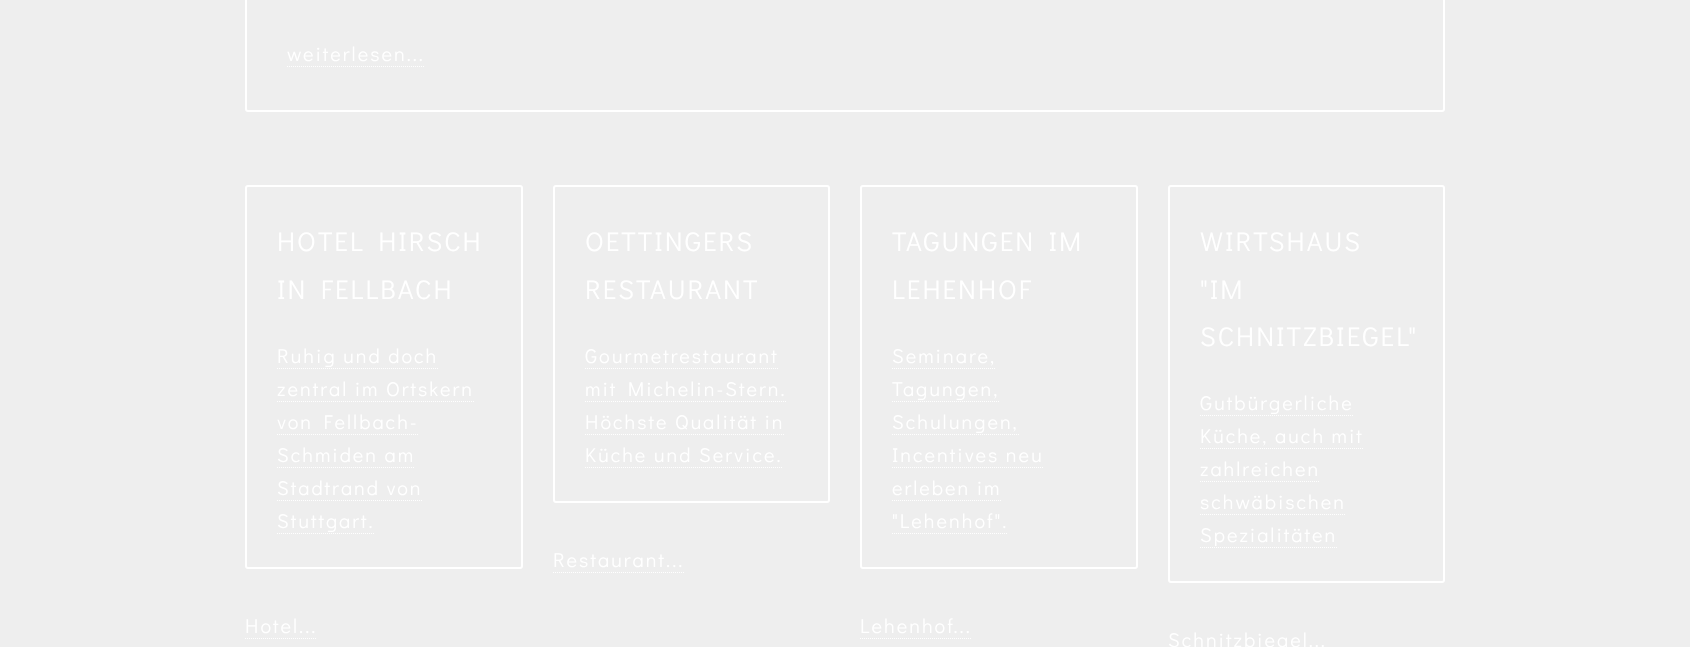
async function draw(canvas) {
  canvas.width = 1690
  canvas.height = 647
  const ctx = canvas.getContext('2d')
  ctx.miterLimit = 4
  ctx.fontKerning = 'normal'

  ctx.fillStyle = '#eee'
  ctx.fillRect(0, 0, 1690, 647)
  ctx.beginPath()
  ctx.roundRect(246, -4, 1198, 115, 2)
  ctx.strokeStyle = '#fff'
  ctx.lineWidth = 2
  ctx.stroke()
  ctx.letterSpacing = '2px'
  ctx.font = '20px Didact Gothic'
  ctx.fillStyle = '#fff'
  ctx.fillText('weiterlesen...', 287, 61)
  ctx.beginPath()
  ctx.moveTo(287, 66.5)
  ctx.lineTo(425, 66.5)
  ctx.lineWidth = 1
  ctx.setLineDash([1, 1])
  ctx.stroke()
  ctx.beginPath()
  ctx.roundRect(246, 186, 276, 382, 2)
  ctx.lineWidth = 2
  ctx.setLineDash([])
  ctx.stroke()
  ctx.font = '27px Didact Gothic'
  ctx.fillText('HOTEL HIRSCH', 277, 251)
  ctx.fillText('IN FELLBACH', 277, 299)
  ctx.font = '20px Didact Gothic'
  ctx.fillText('Ruhig und doch', 277, 363)
  ctx.beginPath()
  ctx.moveTo(277, 368.5)
  ctx.lineTo(438, 368.5)
  ctx.lineWidth = 1
  ctx.setLineDash([1, 1])
  ctx.stroke()
  ctx.fillText('zentral im Ortskern', 277, 396)
  ctx.beginPath()
  ctx.moveTo(277, 401.5)
  ctx.lineTo(474, 401.5)
  ctx.stroke()
  ctx.fillText('von Fellbach-', 277, 429)
  ctx.beginPath()
  ctx.moveTo(277, 434.5)
  ctx.lineTo(419, 434.5)
  ctx.stroke()
  ctx.fillText('Schmiden am', 277, 462)
  ctx.beginPath()
  ctx.moveTo(277, 467.5)
  ctx.lineTo(415, 467.5)
  ctx.stroke()
  ctx.fillText('Stadtrand von', 277, 495)
  ctx.beginPath()
  ctx.moveTo(277, 500.5)
  ctx.lineTo(423, 500.5)
  ctx.stroke()
  ctx.fillText('Stuttgart.', 277, 528)
  ctx.beginPath()
  ctx.moveTo(277, 533.5)
  ctx.lineTo(375, 533.5)
  ctx.stroke()
  ctx.fillText('Hotel...', 245, 633)
  ctx.beginPath()
  ctx.moveTo(245, 638.5)
  ctx.lineTo(317, 638.5)
  ctx.stroke()
  ctx.beginPath()
  ctx.roundRect(554, 186, 275, 316, 2)
  ctx.lineWidth = 2
  ctx.setLineDash([])
  ctx.stroke()
  ctx.font = '27px Didact Gothic'
  ctx.fillText('OETTINGERS', 585, 251)
  ctx.fillText('RESTAURANT', 585, 299)
  ctx.font = '20px Didact Gothic'
  ctx.fillText('Gourmetrestaurant', 585, 363)
  ctx.beginPath()
  ctx.moveTo(585, 368.5)
  ctx.lineTo(778, 368.5)
  ctx.lineWidth = 1
  ctx.setLineDash([1, 1])
  ctx.stroke()
  ctx.fillText('mit Michelin-Stern.', 585, 396)
  ctx.beginPath()
  ctx.moveTo(585, 401.5)
  ctx.lineTo(786, 401.5)
  ctx.stroke()
  ctx.fillText('Höchste Qualität in', 585, 429)
  ctx.beginPath()
  ctx.moveTo(585, 434.5)
  ctx.lineTo(784, 434.5)
  ctx.stroke()
  ctx.fillText('Küche und Service.', 585, 462)
  ctx.beginPath()
  ctx.moveTo(585, 467.5)
  ctx.lineTo(782, 467.5)
  ctx.stroke()
  ctx.fillText('Restaurant...', 553, 567)
  ctx.beginPath()
  ctx.moveTo(553, 572.5)
  ctx.lineTo(684, 572.5)
  ctx.stroke()
  ctx.beginPath()
  ctx.roundRect(861, 186, 276, 382, 2)
  ctx.lineWidth = 2
  ctx.setLineDash([])
  ctx.stroke()
  ctx.font = '27px Didact Gothic'
  ctx.fillText('TAGUNGEN IM', 892, 251)
  ctx.fillText('LEHENHOF', 892, 299)
  ctx.font = '20px Didact Gothic'
  ctx.fillText('Seminare,', 892, 363)
  ctx.beginPath()
  ctx.moveTo(892, 368.5)
  ctx.lineTo(996, 368.5)
  ctx.lineWidth = 1
  ctx.setLineDash([1, 1])
  ctx.stroke()
  ctx.fillText('Tagungen,', 892, 396)
  ctx.beginPath()
  ctx.moveTo(892, 401.5)
  ctx.lineTo(999, 401.5)
  ctx.stroke()
  ctx.fillText('Schulungen,', 892, 429)
  ctx.beginPath()
  ctx.moveTo(892, 434.5)
  ctx.lineTo(1019, 434.5)
  ctx.stroke()
  ctx.fillText('Incentives neu', 892, 462)
  ctx.beginPath()
  ctx.moveTo(892, 467.5)
  ctx.lineTo(1044, 467.5)
  ctx.stroke()
  ctx.fillText('erleben im', 892, 495)
  ctx.beginPath()
  ctx.moveTo(892, 500.5)
  ctx.lineTo(1002, 500.5)
  ctx.stroke()
  ctx.fillText('"Lehenhof".', 892, 528)
  ctx.beginPath()
  ctx.moveTo(892, 533.5)
  ctx.lineTo(1008, 533.5)
  ctx.stroke()
  ctx.fillText('Lehenhof...', 860, 633)
  ctx.beginPath()
  ctx.moveTo(860, 638.5)
  ctx.lineTo(972, 638.5)
  ctx.stroke()
  ctx.beginPath()
  ctx.roundRect(1169, 186, 275, 396, 2)
  ctx.lineWidth = 2
  ctx.setLineDash([])
  ctx.stroke()
  ctx.font = '27px Didact Gothic'
  ctx.fillText('WIRTSHAUS', 1200, 251)
  ctx.fillText('"IM', 1200, 299)
  ctx.fillText('SCHNITZBIEGEL"', 1200, 346)
  ctx.font = '20px Didact Gothic'
  ctx.fillText('Gutbürgerliche', 1200, 410)
  ctx.beginPath()
  ctx.moveTo(1200, 415.5)
  ctx.lineTo(1353, 415.5)
  ctx.lineWidth = 1
  ctx.setLineDash([1, 1])
  ctx.stroke()
  ctx.fillText('Küche, auch mit', 1200, 443)
  ctx.beginPath()
  ctx.moveTo(1200, 448.5)
  ctx.lineTo(1363, 448.5)
  ctx.stroke()
  ctx.fillText('zahlreichen', 1200, 476)
  ctx.beginPath()
  ctx.moveTo(1200, 481.5)
  ctx.lineTo(1320, 481.5)
  ctx.stroke()
  ctx.fillText('schwäbischen', 1200, 509)
  ctx.beginPath()
  ctx.moveTo(1200, 514.5)
  ctx.lineTo(1346, 514.5)
  ctx.stroke()
  ctx.fillText('Spezialitäten', 1200, 542)
  ctx.beginPath()
  ctx.moveTo(1200, 547.5)
  ctx.lineTo(1337, 547.5)
  ctx.stroke()
  ctx.fillText('Schnitzbiegel...', 1168, 647)
}

draw(document.querySelector('canvas'))
